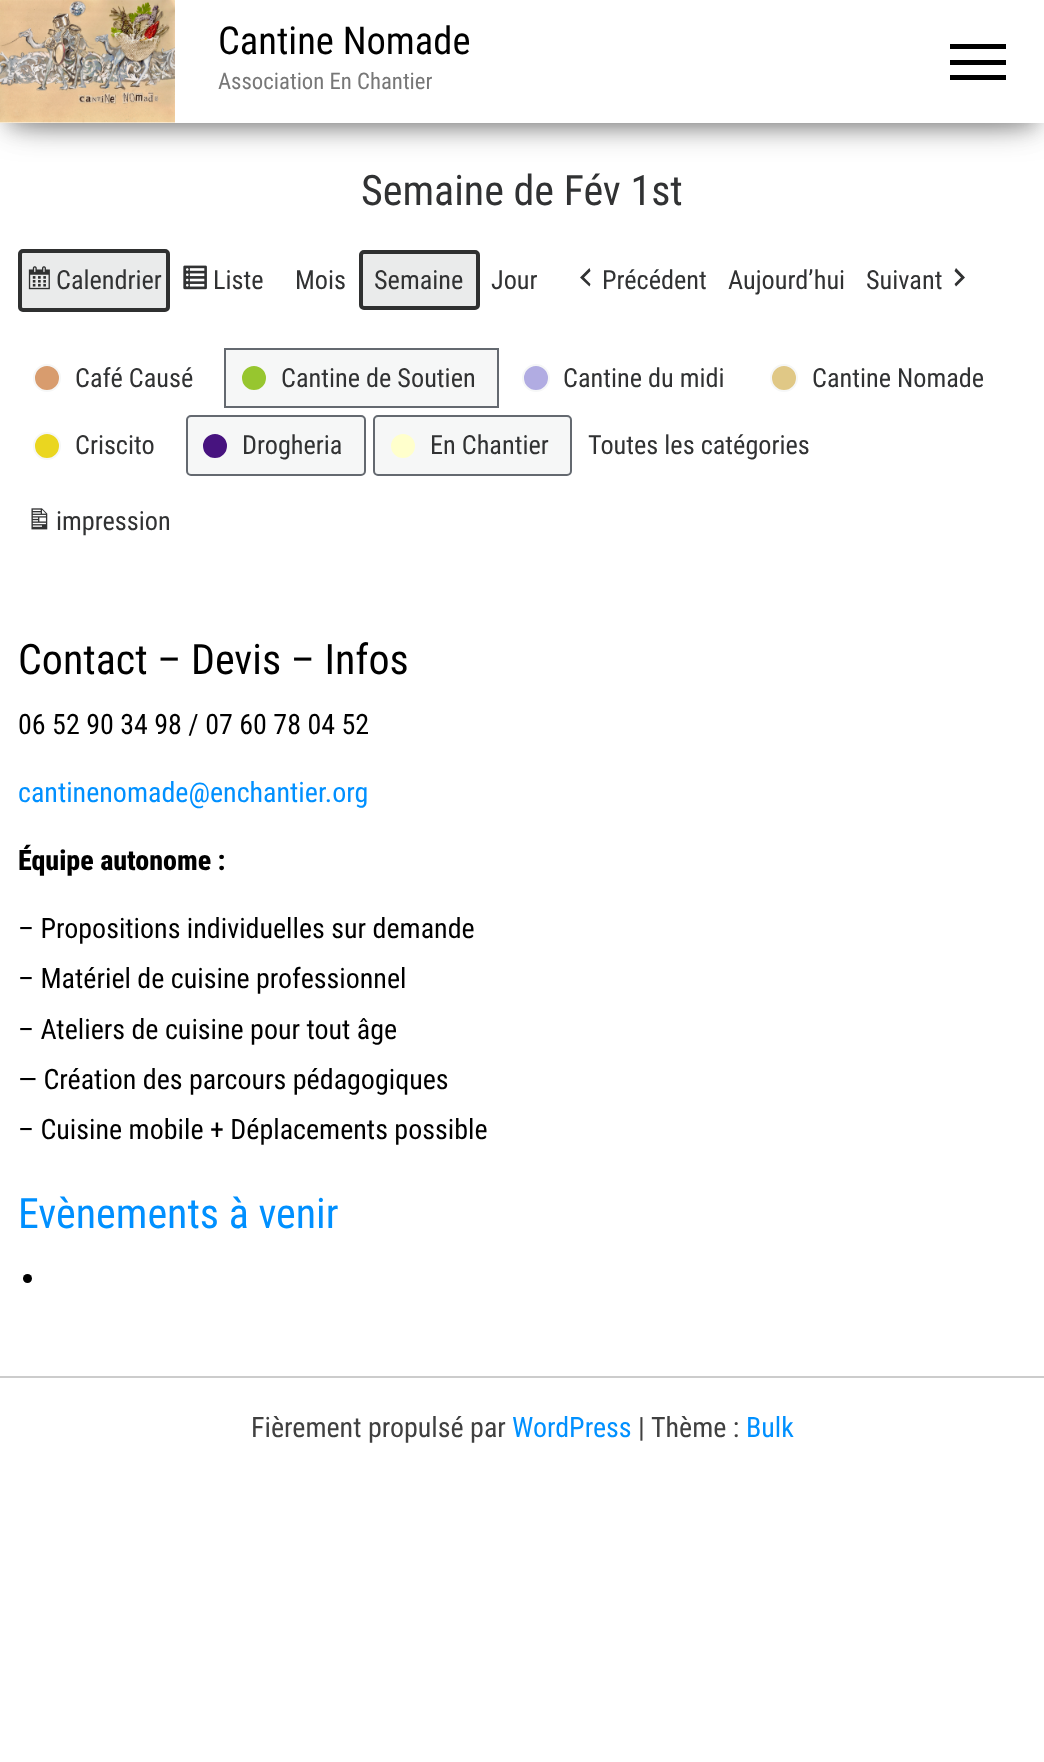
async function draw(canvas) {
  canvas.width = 1044
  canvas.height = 1762
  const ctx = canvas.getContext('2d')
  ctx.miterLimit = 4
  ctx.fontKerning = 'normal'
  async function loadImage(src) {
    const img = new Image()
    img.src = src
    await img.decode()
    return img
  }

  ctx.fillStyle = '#fff'
  ctx.fillRect(0, 0, 1044, 1762)
  ctx.fillStyle = '#00000033'
  ctx.filter = 'blur(9px)'
  ctx.beginPath()
  ctx.rect(9, 23, 1027, 105)
  ctx.fill()
  ctx.filter = 'none'
  ctx.fillStyle = '#0000001f'
  ctx.filter = 'blur(17.5px)'
  ctx.beginPath()
  ctx.rect(0, 5, 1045, 123)
  ctx.fill()
  ctx.filter = 'none'
  ctx.fillStyle = '#0000006b'
  ctx.filter = 'blur(17.5px)'
  ctx.beginPath()
  ctx.rect(21, 39, 1003, 80)
  ctx.fill()
  ctx.filter = 'none'
  ctx.fillStyle = '#fff'
  ctx.fillRect(0, 0, 1044, 123)
  ctx.drawImage(await loadImage('image0.png'), 0, 0, 175, 123)
  ctx.font = '38.5px Roboto Condensed'
  ctx.fillStyle = '#000'
  ctx.fillText('Cantine Nomade', 218, 54)
  ctx.font = '22.75px Roboto Condensed'
  ctx.fillStyle = '#777'
  ctx.fillText('Association En Chantier', 218, 89)
  ctx.fillStyle = '#000'
  ctx.fillRect(950, 44, 56, 5)
  ctx.fillRect(950, 60, 56, 5)
  ctx.fillRect(950, 75, 56, 5)
  ctx.font = '42px Roboto Condensed'
  ctx.fillStyle = '#313233'
  ctx.fillText('Semaine de Fév 1st', 361, 205)
  ctx.fillStyle = '#eaebeb'
  ctx.beginPath()
  ctx.roundRect(18, 249, 152, 63, 5)
  ctx.fill()
  ctx.drawImage(await loadImage('image1.png'), 28, 266, 22, 24)
  ctx.beginPath()
  ctx.roundRect(20, 251, 148, 59, 3)
  ctx.strokeStyle = '#2f3030'
  ctx.lineWidth = 4
  ctx.stroke()
  ctx.font = '26.25px Roboto Condensed'
  ctx.fillStyle = '#313233'
  ctx.fillText('Calendrier', 56, 289)
  ctx.drawImage(await loadImage('image2.png'), 183, 265, 24, 25)
  ctx.fillText('Liste', 213, 289)
  ctx.fillText('Mois', 295, 289)
  ctx.fillStyle = '#eaebeb'
  ctx.beginPath()
  ctx.roundRect(359, 250, 121, 60, 5)
  ctx.fill()
  ctx.beginPath()
  ctx.roundRect(361, 252, 117, 56, 3)
  ctx.stroke()
  ctx.fillStyle = '#313233'
  ctx.fillText('Semaine', 374, 289)
  ctx.fillText('Jour', 491, 289)
  ctx.beginPath()
  ctx.moveTo(590.5, 271)
  ctx.lineTo(584, 277.5)
  ctx.lineTo(590.5, 284)
  ctx.lineTo(589.5, 286.5)
  ctx.lineTo(580, 277.5)
  ctx.lineTo(589.5, 268)
  ctx.closePath()
  ctx.fill()
  ctx.fillText('Précédent', 602, 289)
  ctx.fillText('Aujourd’hui', 728, 289)
  ctx.fillText('Suivant', 866, 289)
  ctx.beginPath()
  ctx.moveTo(954.5, 284)
  ctx.lineTo(961, 277.5)
  ctx.lineTo(954.5, 271)
  ctx.lineTo(956, 268)
  ctx.lineTo(965, 277.5)
  ctx.lineTo(956, 286.5)
  ctx.closePath()
  ctx.fill()
  ctx.fillStyle = '#d89c6e'
  ctx.beginPath()
  ctx.arc(47, 378, 13, 0, 2 * Math.PI)
  ctx.fill()
  ctx.strokeStyle = '#f6f7f7'
  ctx.lineWidth = 2
  ctx.stroke()
  ctx.fillStyle = '#313233'
  ctx.fillText('Café Causé', 75, 387)
  ctx.fillStyle = '#f6f7f7'
  ctx.beginPath()
  ctx.rect(225, 349, 273, 58)
  ctx.fill()
  ctx.strokeStyle = '#646970'
  ctx.stroke()
  ctx.fillStyle = '#97c62f'
  ctx.beginPath()
  ctx.arc(254, 378, 13, 0, 2 * Math.PI)
  ctx.fill()
  ctx.strokeStyle = '#f6f7f7'
  ctx.stroke()
  ctx.fillStyle = '#313233'
  ctx.fillText('Cantine de Soutien', 281, 387)
  ctx.fillStyle = '#b1ace2'
  ctx.beginPath()
  ctx.arc(536, 378, 13, 0, 2 * Math.PI)
  ctx.fill()
  ctx.stroke()
  ctx.fillStyle = '#313233'
  ctx.fillText('Cantine du midi', 563, 387)
  ctx.fillStyle = '#e0c886'
  ctx.beginPath()
  ctx.arc(784, 378, 13, 0, 2 * Math.PI)
  ctx.fill()
  ctx.stroke()
  ctx.fillStyle = '#313233'
  ctx.fillText('Cantine Nomade', 812, 387)
  ctx.fillStyle = '#ead620'
  ctx.beginPath()
  ctx.arc(47, 446, 13, 0, 2 * Math.PI)
  ctx.fill()
  ctx.stroke()
  ctx.fillStyle = '#313233'
  ctx.fillText('Criscito', 75, 454)
  ctx.fillStyle = '#f6f7f7'
  ctx.beginPath()
  ctx.roundRect(187, 416, 178, 59, 4)
  ctx.fill()
  ctx.strokeStyle = '#646970'
  ctx.stroke()
  ctx.fillStyle = '#47137f'
  ctx.beginPath()
  ctx.arc(215, 446, 13, 0, 2 * Math.PI)
  ctx.fill()
  ctx.strokeStyle = '#f6f7f7'
  ctx.stroke()
  ctx.fillStyle = '#313233'
  ctx.fillText('Drogheria', 242, 454)
  ctx.fillStyle = '#f6f7f7'
  ctx.beginPath()
  ctx.roundRect(374, 416, 197, 59, 4)
  ctx.fill()
  ctx.strokeStyle = '#646970'
  ctx.stroke()
  ctx.fillStyle = '#ffc'
  ctx.beginPath()
  ctx.arc(403, 446, 13, 0, 2 * Math.PI)
  ctx.fill()
  ctx.strokeStyle = '#f6f7f7'
  ctx.stroke()
  ctx.fillStyle = '#313233'
  ctx.fillText('En Chantier', 430, 454)
  ctx.fillText('Toutes les catégories', 588, 454)
  ctx.drawImage(await loadImage('image3.png'), 31, 508, 17, 22)
  ctx.fillText('impression', 56, 530)
  ctx.font = '42px Roboto Condensed'
  ctx.fillStyle = '#000'
  ctx.fillText('Contact – Devis – Infos', 18, 674)
  ctx.font = '28px Roboto Condensed'
  ctx.fillText('06 52 90 34 98 / 07 60 78 04 52', 18, 734)
  ctx.fillStyle = '#0090ff'
  ctx.fillText('cantinenomade@enchantier.org', 18, 802)
  ctx.font = '800 28px Roboto Condensed'
  ctx.fillStyle = '#000'
  ctx.fillText('Équipe autonome :', 18, 870)
  ctx.font = '28px Roboto Condensed'
  ctx.fillText('– Propositions individuelles sur demande', 18, 938)
  ctx.fillText('– Matériel de cuisine professionnel', 18, 988)
  ctx.fillText('– Ateliers de cuisine pour tout âge', 18, 1039)
  ctx.fillText('— Création des parcours pédagogiques', 18, 1089)
  ctx.fillText('– Cuisine mobile + Déplacements possible', 18, 1139)
  ctx.font = '42px Roboto Condensed'
  ctx.fillStyle = '#0090ff'
  ctx.fillText('Evènements à venir', 18, 1228)
  ctx.fillStyle = '#000'
  ctx.beginPath()
  ctx.arc(27.5, 1278.5, 4.5, 0, 2 * Math.PI)
  ctx.fill()
  ctx.fillStyle = '#ccc'
  ctx.fillRect(0, 1376, 1044, 2)
  ctx.font = '28px Roboto Condensed'
  ctx.fillStyle = '#404040'
  ctx.fillText('Fièrement propulsé par', 251, 1437)
  ctx.fillStyle = '#0090ff'
  ctx.fillText('WordPress', 512, 1437)
  ctx.fillStyle = '#404040'
  ctx.fillText('|', 638, 1437)
  ctx.fillText('Thème :', 651, 1437)
  ctx.fillStyle = '#0090ff'
  ctx.fillText('Bulk', 746, 1437)
}

draw(document.querySelector('canvas'))
